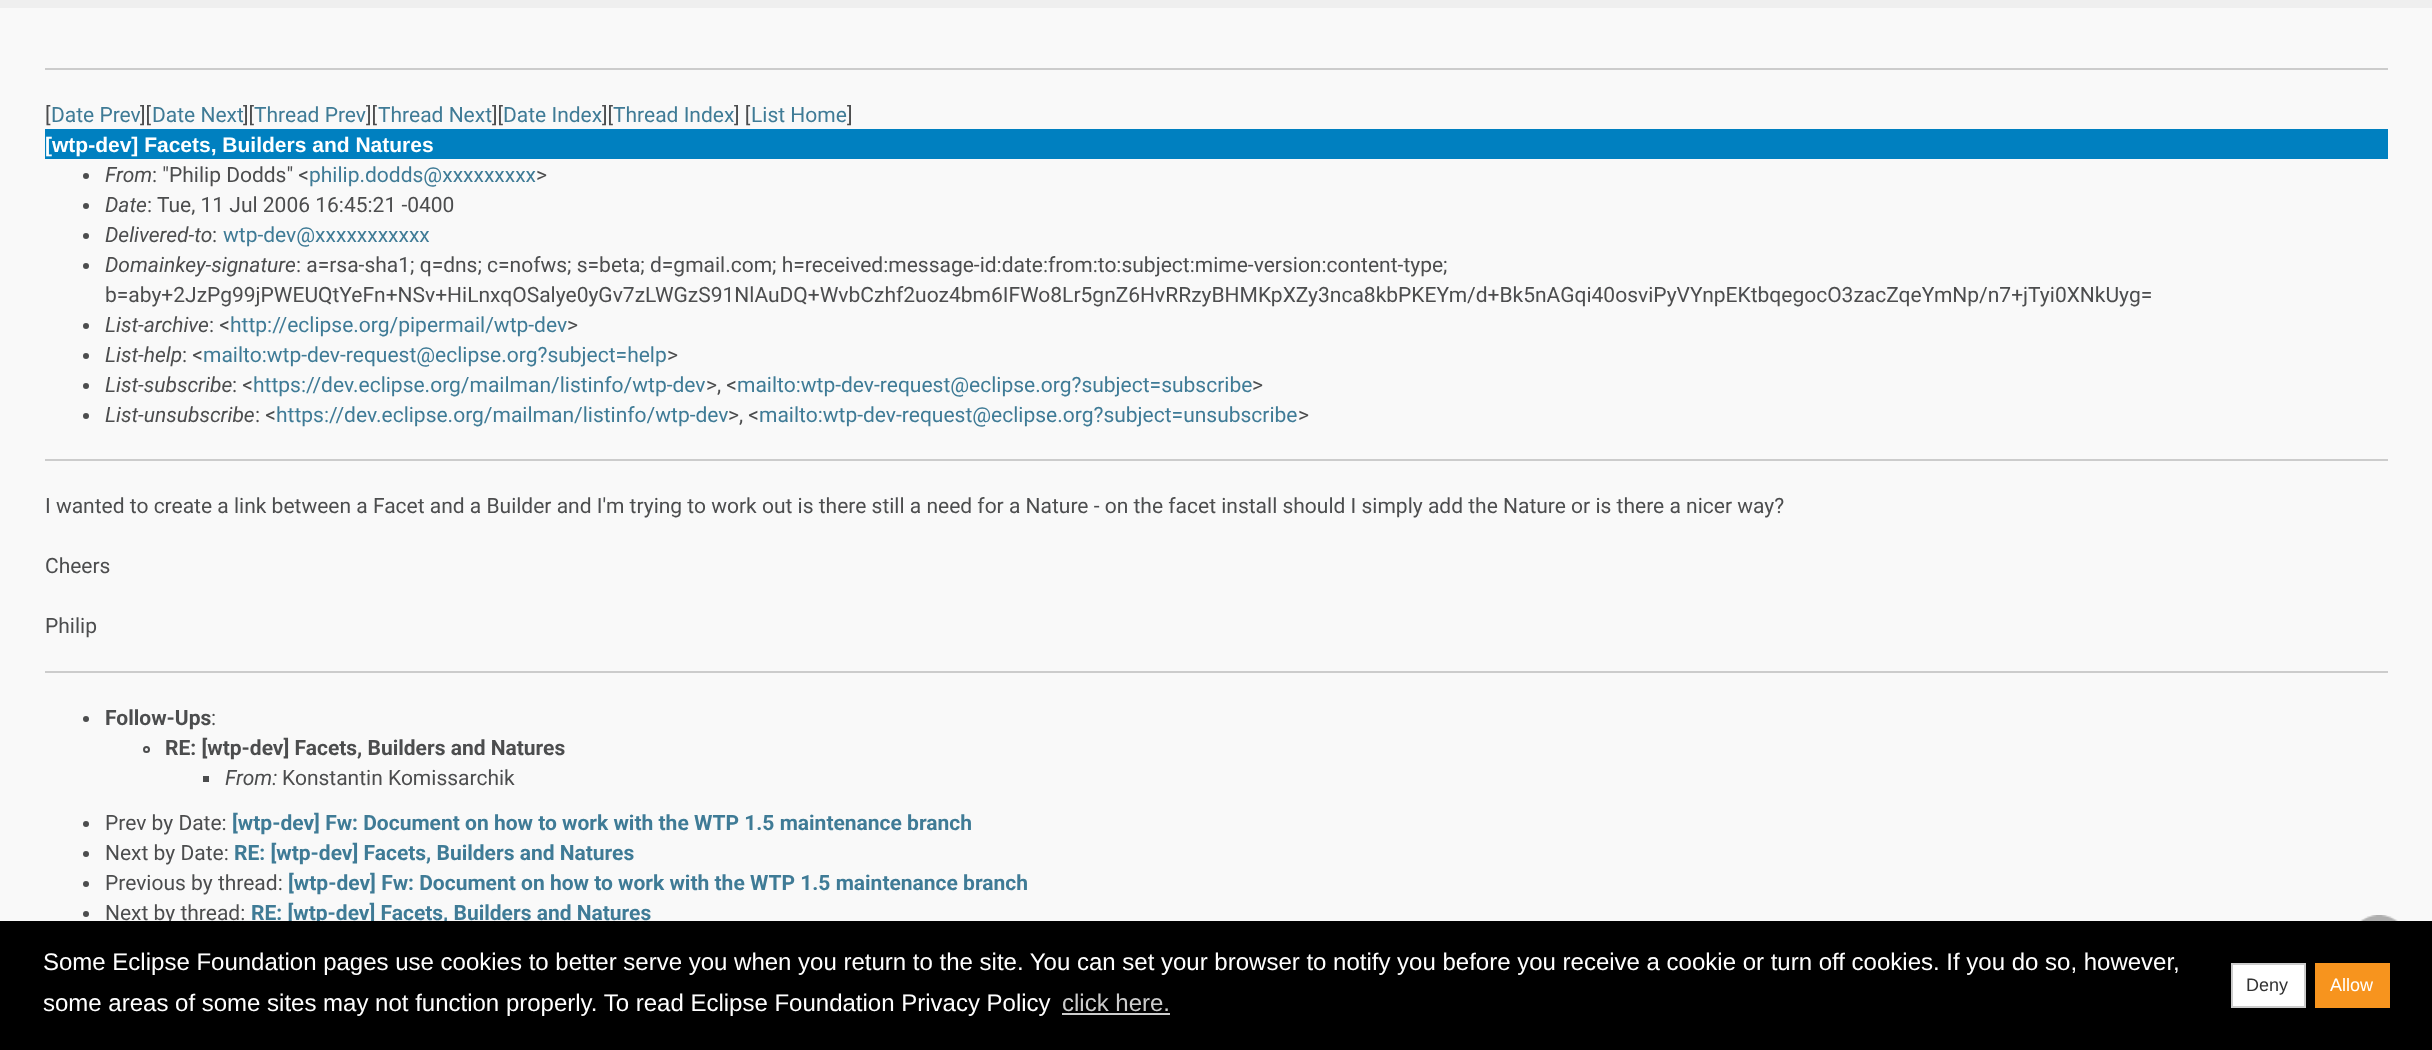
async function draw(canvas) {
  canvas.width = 2432
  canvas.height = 1050
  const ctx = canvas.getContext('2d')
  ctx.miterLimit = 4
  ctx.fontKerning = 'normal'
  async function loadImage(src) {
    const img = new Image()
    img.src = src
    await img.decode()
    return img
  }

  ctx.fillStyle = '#f9f9f9'
  ctx.fillRect(0, 0, 2432, 1050)
  ctx.fillStyle = '#efefef'
  ctx.fillRect(0, 0, 2432, 8)
  ctx.fillStyle = '#ccc'
  ctx.fillRect(45, 68, 2343, 2)
  ctx.font = '21px Roboto'
  ctx.fillStyle = '#4c4d4e'
  ctx.fillText('[', 45, 122)
  ctx.fillStyle = '#3f7b96'
  ctx.fillText('Date Prev', 51, 122)
  ctx.fillStyle = '#4c4d4e'
  ctx.fillText('][', 140, 122)
  ctx.fillStyle = '#3f7b96'
  ctx.fillText('Date Next', 152, 122)
  ctx.fillStyle = '#4c4d4e'
  ctx.fillText('][', 243, 122)
  ctx.fillStyle = '#3f7b96'
  ctx.fillText('Thread Prev', 254, 122)
  ctx.fillStyle = '#4c4d4e'
  ctx.fillText('][', 366, 122)
  ctx.fillStyle = '#3f7b96'
  ctx.fillText('Thread Next', 378, 122)
  ctx.fillStyle = '#4c4d4e'
  ctx.fillText('][', 492, 122)
  ctx.fillStyle = '#3f7b96'
  ctx.fillText('Date Index', 503, 122)
  ctx.fillStyle = '#4c4d4e'
  ctx.fillText('][', 602, 122)
  ctx.fillStyle = '#3f7b96'
  ctx.fillText('Thread Index', 613, 122)
  ctx.fillStyle = '#4c4d4e'
  ctx.fillText('] [', 734, 122)
  ctx.fillStyle = '#3f7b96'
  ctx.fillText('List Home', 751, 122)
  ctx.fillStyle = '#4c4d4e'
  ctx.fillText(']', 847, 122)
  ctx.fillStyle = '#0080c0'
  ctx.fillRect(45, 129, 2343, 30)
  ctx.font = 'bold 21px Liberation Sans'
  ctx.fillStyle = '#fff'
  ctx.fillText('[wtp-dev] Facets, Builders and Natures', 45, 152)
  ctx.fillStyle = '#4c4d4e'
  ctx.beginPath()
  ctx.arc(86, 176, 3, 0, 2 * Math.PI)
  ctx.fill()
  ctx.font = 'italic 21px Roboto'
  ctx.fillText('From', 105, 182)
  ctx.font = '21px Roboto'
  ctx.fillText(': "Philip Dodds" <', 152, 182)
  ctx.fillStyle = '#3f7b96'
  ctx.fillText('philip.dodds@xxxxxxxxx', 309, 182)
  ctx.fillStyle = '#4c4d4e'
  ctx.fillText('>', 536, 182)
  ctx.beginPath()
  ctx.arc(86, 206, 3, 0, 2 * Math.PI)
  ctx.fill()
  ctx.font = 'italic 21px Roboto'
  ctx.fillText('Date', 105, 212)
  ctx.font = '21px Roboto'
  ctx.fillText(': Tue, 11 Jul 2006 16:45:21 -0400', 147, 212)
  ctx.beginPath()
  ctx.arc(86, 236, 3, 0, 2 * Math.PI)
  ctx.fill()
  ctx.font = 'italic 21px Roboto'
  ctx.fillText('Delivered-to', 105, 242)
  ctx.font = '21px Roboto'
  ctx.fillText(':', 212, 242)
  ctx.fillStyle = '#3f7b96'
  ctx.fillText('wtp-dev@xxxxxxxxxxx', 223, 242)
  ctx.fillStyle = '#4c4d4e'
  ctx.beginPath()
  ctx.arc(86, 266, 3, 0, 2 * Math.PI)
  ctx.fill()
  ctx.font = 'italic 21px Roboto'
  ctx.fillText('Domainkey-signature', 105, 272)
  ctx.font = '21px Roboto'
  ctx.fillText(': a=rsa-sha1; q=dns; c=nofws; s=beta; d=gmail.com; h=received:message-id:date:from:to:subject:mime-version:content-type;', 296, 272)
  ctx.fillText('b=aby+2JzPg99jPWEUQtYeFn+NSv+HiLnxqOSalye0yGv7zLWGzS91NlAuDQ+WvbCzhf2uoz4bm6IFWo8Lr5gnZ6HvRRzyBHMKpXZy3nca8kbPKEYm/d+Bk5nAGqi40osviPyVYnpEKtbqegocO3zacZqeYmNp/n7+jTyi0XNkUyg=', 105, 302)
  ctx.beginPath()
  ctx.arc(86, 326, 3, 0, 2 * Math.PI)
  ctx.fill()
  ctx.font = 'italic 21px Roboto'
  ctx.fillText('List-archive', 105, 332)
  ctx.font = '21px Roboto'
  ctx.fillText(': <', 209, 332)
  ctx.fillStyle = '#3f7b96'
  ctx.fillText('http://eclipse.org/pipermail/wtp-dev', 230, 332)
  ctx.fillStyle = '#4c4d4e'
  ctx.fillText('>', 567, 332)
  ctx.beginPath()
  ctx.arc(86, 356, 3, 0, 2 * Math.PI)
  ctx.fill()
  ctx.font = 'italic 21px Roboto'
  ctx.fillText('List-help', 105, 362)
  ctx.font = '21px Roboto'
  ctx.fillText(': <', 182, 362)
  ctx.fillStyle = '#3f7b96'
  ctx.fillText('mailto:wtp-dev-request@eclipse.org?subject=help', 203, 362)
  ctx.fillStyle = '#4c4d4e'
  ctx.fillText('>', 667, 362)
  ctx.beginPath()
  ctx.arc(86, 386, 3, 0, 2 * Math.PI)
  ctx.fill()
  ctx.font = 'italic 21px Roboto'
  ctx.fillText('List-subscribe', 105, 392)
  ctx.font = '21px Roboto'
  ctx.fillText(': <', 232, 392)
  ctx.fillStyle = '#3f7b96'
  ctx.fillText('https://dev.eclipse.org/mailman/listinfo/wtp-dev', 253, 392)
  ctx.fillStyle = '#4c4d4e'
  ctx.fillText('>, <', 706, 392)
  ctx.fillStyle = '#3f7b96'
  ctx.fillText('mailto:wtp-dev-request@eclipse.org?subject=subscribe', 737, 392)
  ctx.fillStyle = '#4c4d4e'
  ctx.fillText('>', 1252, 392)
  ctx.beginPath()
  ctx.arc(86, 416, 3, 0, 2 * Math.PI)
  ctx.fill()
  ctx.font = 'italic 21px Roboto'
  ctx.fillText('List-unsubscribe', 105, 422)
  ctx.font = '21px Roboto'
  ctx.fillText(': <', 255, 422)
  ctx.fillStyle = '#3f7b96'
  ctx.fillText('https://dev.eclipse.org/mailman/listinfo/wtp-dev', 276, 422)
  ctx.fillStyle = '#4c4d4e'
  ctx.fillText('>, <', 728, 422)
  ctx.fillStyle = '#3f7b96'
  ctx.fillText('mailto:wtp-dev-request@eclipse.org?subject=unsubscribe', 759, 422)
  ctx.fillStyle = '#4c4d4e'
  ctx.fillText('>', 1298, 422)
  ctx.fillStyle = '#ccc'
  ctx.fillRect(45, 459, 2343, 2)
  ctx.fillStyle = '#4c4d4e'
  ctx.fillText('I wanted to create a link between a Facet and a Builder and I\'m trying to work out is there still a need for a Nature - on the facet install should I simply add the Nature or is there a nicer way?', 45, 513)
  ctx.fillText('Cheers', 45, 573)
  ctx.fillText('Philip', 45, 633)
  ctx.fillStyle = '#ccc'
  ctx.fillRect(45, 671, 2343, 2)
  ctx.fillStyle = '#4c4d4e'
  ctx.beginPath()
  ctx.arc(86, 719, 3, 0, 2 * Math.PI)
  ctx.fill()
  ctx.font = 'bold 21px Roboto'
  ctx.fillText('Follow-Ups', 105, 725)
  ctx.font = '21px Roboto'
  ctx.fillText(':', 211, 725)
  ctx.beginPath()
  ctx.arc(146.5, 749.5, 2.5, 0, 2 * Math.PI)
  ctx.strokeStyle = '#4c4d4e'
  ctx.lineWidth = 2
  ctx.stroke()
  ctx.font = 'bold 21px Roboto'
  ctx.fillText('RE: [wtp-dev] Facets, Builders and Natures', 165, 755)
  ctx.fillRect(203, 776, 6, 6)
  ctx.font = 'italic 21px Roboto'
  ctx.fillText('From:', 225, 785)
  ctx.font = '21px Roboto'
  ctx.fillText('Konstantin Komissarchik', 282, 785)
  ctx.beginPath()
  ctx.arc(86, 824, 3, 0, 2 * Math.PI)
  ctx.fill()
  ctx.fillText('Prev by Date:', 105, 830)
  ctx.font = 'bold 21px Roboto'
  ctx.fillStyle = '#3f7b96'
  ctx.fillText('[wtp-dev] Fw: Document on how to work with the WTP 1.5 maintenance branch', 232, 830)
  ctx.fillStyle = '#4c4d4e'
  ctx.beginPath()
  ctx.arc(86, 854, 3, 0, 2 * Math.PI)
  ctx.fill()
  ctx.font = '21px Roboto'
  ctx.fillText('Next by Date:', 105, 860)
  ctx.font = 'bold 21px Roboto'
  ctx.fillStyle = '#3f7b96'
  ctx.fillText('RE: [wtp-dev] Facets, Builders and Natures', 234, 860)
  ctx.fillStyle = '#4c4d4e'
  ctx.beginPath()
  ctx.arc(86, 884, 3, 0, 2 * Math.PI)
  ctx.fill()
  ctx.font = '21px Roboto'
  ctx.fillText('Previous by thread:', 105, 890)
  ctx.font = 'bold 21px Roboto'
  ctx.fillStyle = '#3f7b96'
  ctx.fillText('[wtp-dev] Fw: Document on how to work with the WTP 1.5 maintenance branch', 288, 890)
  ctx.fillStyle = '#4c4d4e'
  ctx.beginPath()
  ctx.arc(86, 914, 3, 0, 2 * Math.PI)
  ctx.fill()
  ctx.font = '21px Roboto'
  ctx.fillText('Next by thread:', 105, 920)
  ctx.font = 'bold 21px Roboto'
  ctx.fillStyle = '#3f7b96'
  ctx.fillText('RE: [wtp-dev] Facets, Builders and Natures', 251, 920)
  ctx.drawImage(await loadImage('image0.png'), 2360, 915, 38, 6)
  ctx.fillStyle = '#000'
  ctx.fillRect(0, 921, 2432, 129)
  ctx.font = '24px Liberation Sans'
  ctx.fillStyle = '#fff'
  ctx.fillText('Some Eclipse Foundation pages use cookies to better serve you when you return to the site. You can set your browser to notify you before you receive a cookie or turn off cookies. If you do so, however,', 43, 970)
  ctx.fillText('some areas of some sites may not function properly. To read Eclipse Foundation Privacy Policy', 43, 1011)
  ctx.fillStyle = '#ccc'
  ctx.fillText('click here.', 1062, 1011)
  ctx.fillRect(1062, 1013, 108, 2)
  ctx.fillStyle = '#fff'
  ctx.beginPath()
  ctx.rect(2232, 964, 73, 43)
  ctx.fill()
  ctx.strokeStyle = '#ccc'
  ctx.stroke()
  ctx.font = '18px Liberation Sans'
  ctx.fillStyle = '#333'
  ctx.fillText('Deny', 2246, 991)
  ctx.fillStyle = '#f7941e'
  ctx.fillRect(2315, 963, 75, 45)
  ctx.fillStyle = '#fff'
  ctx.fillText('Allow', 2330, 991)
}

draw(document.querySelector('canvas'))
